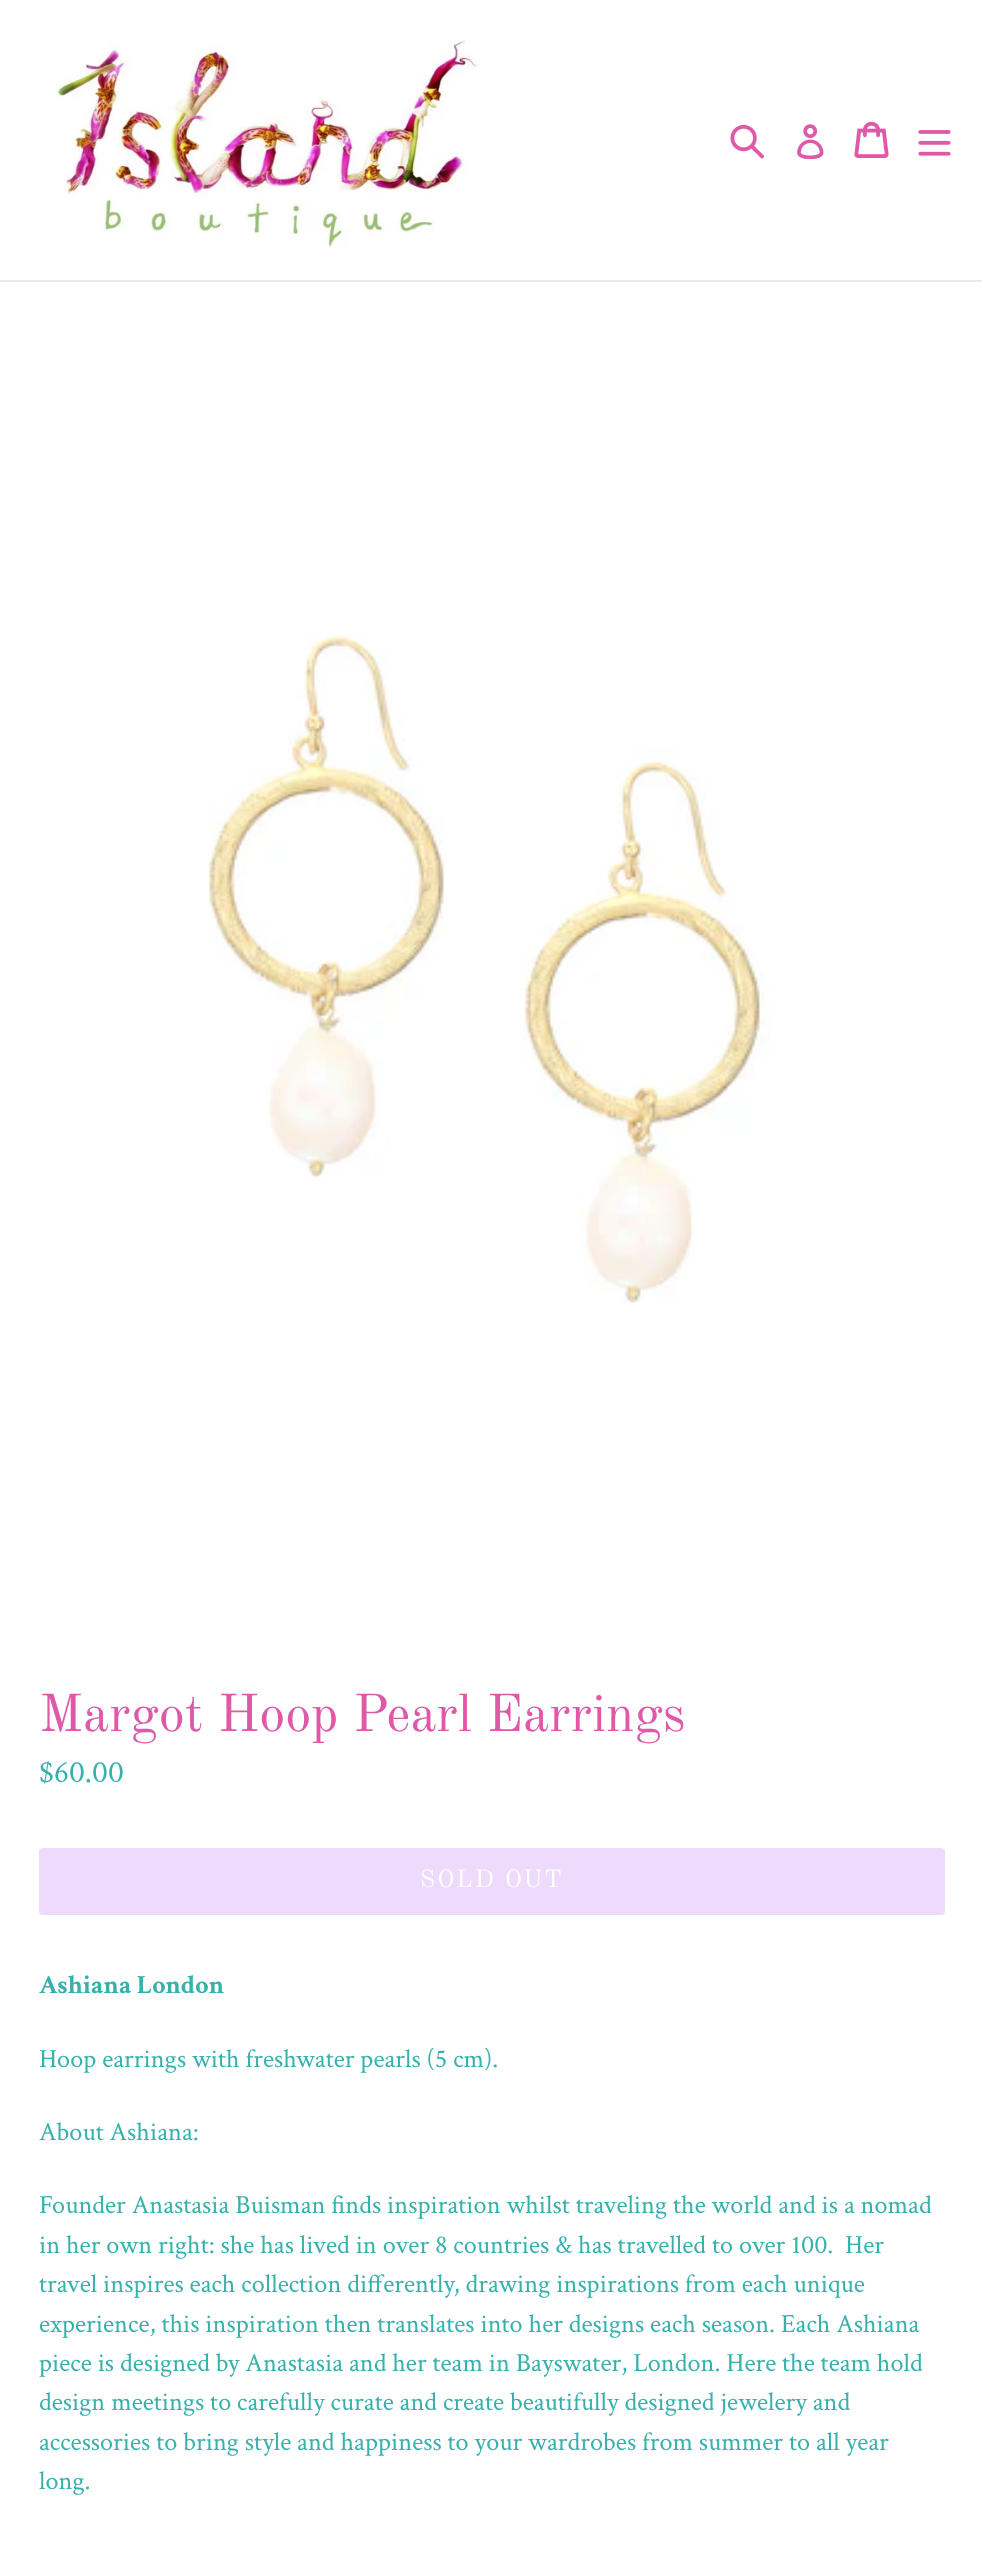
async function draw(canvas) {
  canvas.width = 982
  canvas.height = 2553
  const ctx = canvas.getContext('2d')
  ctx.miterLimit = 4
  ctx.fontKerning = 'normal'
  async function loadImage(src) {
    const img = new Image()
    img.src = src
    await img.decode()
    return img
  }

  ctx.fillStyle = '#fff'
  ctx.fillRect(0, 0, 982, 2553)
  ctx.fillStyle = '#e8e9eb'
  ctx.fillRect(0, 280, 982, 2)
  ctx.drawImage(await loadImage('image0.png'), 55, 40, 424, 208)
  ctx.drawImage(await loadImage('image1.png'), 730, 124, 34, 35)
  ctx.drawImage(await loadImage('image2.png'), 797, 124, 27, 35)
  ctx.drawImage(await loadImage('image3.png'), 854, 121, 35, 37)
  ctx.drawImage(await loadImage('image4.png'), 918, 130, 33, 26)
  ctx.drawImage(await loadImage('image5.png'), 207, 632, 564, 671)
  ctx.font = '52.5px Old Standard TT'
  ctx.fillStyle = '#df59a8'
  ctx.fillText('Margot Hoop Pearl Earrings', 39, 1731)
  ctx.font = '31.5px Crimson Text'
  ctx.fillStyle = '#37b1ac'
  ctx.fillText('$60.00', 39, 1782)
  ctx.fillStyle = '#eedafb'
  ctx.beginPath()
  ctx.roundRect(39, 1848, 906, 67, 4)
  ctx.fill()
  ctx.letterSpacing = '2px'
  ctx.font = '24.5px Old Standard TT'
  ctx.fillStyle = '#fff'
  ctx.fillText('SOLD OUT', 420, 1887)
  ctx.letterSpacing = '0px'
  ctx.font = 'bold 26.25px Crimson Text'
  ctx.fillStyle = '#37b1ac'
  ctx.fillText('Ashiana London', 39, 1993)
  ctx.font = '26.25px Crimson Text'
  ctx.fillText('Hoop earrings with freshwater pearls (5 cm).', 39, 2067)
  ctx.fillText('About Ashiana:', 39, 2140)
  ctx.fillText('Founder Anastasia Buisman finds inspiration whilst traveling the world and is a nomad', 39, 2213)
  ctx.fillText('in her own right: she has lived in over 8 countries & has travelled to over 100.  Her', 39, 2253)
  ctx.fillText('travel inspires each collection differently, drawing inspirations from each unique', 39, 2292)
  ctx.fillText('experience, this inspiration then translates into her designs each season. Each Ashiana', 39, 2332)
  ctx.fillText('piece is designed by Anastasia and her team in Bayswater, London. Here the team hold', 39, 2371)
  ctx.fillText('design meetings to carefully curate and create beautifully designed jewelery and', 39, 2410)
  ctx.fillText('accessories to bring style and happiness to your wardrobes from summer to all year', 39, 2450)
  ctx.fillText('long.', 39, 2489)
}

draw(document.querySelector('canvas'))
